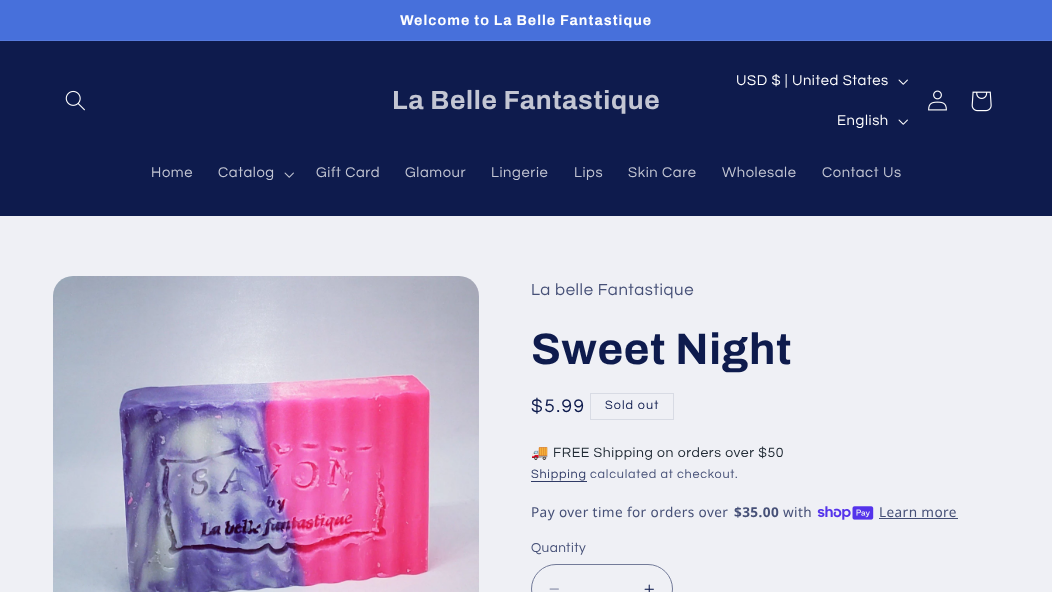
async function draw(canvas) {
  canvas.width = 1052
  canvas.height = 592
  const ctx = canvas.getContext('2d')
  ctx.miterLimit = 4
  ctx.fontKerning = 'normal'
  async function loadImage(src) {
    const img = new Image()
    img.src = src
    await img.decode()
    return img
  }

  ctx.fillStyle = '#eff0f5'
  ctx.fillRect(0, 0, 1052, 592)
  ctx.fillStyle = '#4770db'
  ctx.fillRect(0, 0, 1052, 40)
  ctx.fillStyle = '#567bde'
  ctx.fillRect(0, 40, 1052, 1)
  ctx.letterSpacing = '1.05px'
  ctx.font = 'bold 14.25px Archivo'
  ctx.fillStyle = '#fff'
  ctx.fillText('Welcome to La Belle Fantastique', 400, 25)
  ctx.fillStyle = '#0e1b4d'
  ctx.fillRect(0, 41, 1052, 175)
  ctx.drawImage(await loadImage('image0.png'), 65, 90, 20, 21)
  ctx.letterSpacing = '0.7px'
  ctx.font = 'bold 26.4px Archivo'
  ctx.fillStyle = '#c3c6d3'
  ctx.fillText('La Belle Fantastique', 392, 109)
  ctx.letterSpacing = '0.6px'
  ctx.font = '14.75px Questrial'
  ctx.fillStyle = '#fff'
  ctx.fillText('USD $ | United States', 736, 85)
  ctx.drawImage(await loadImage('image1.png'), 898, 79, 10, 6)
  ctx.fillText('English', 837, 125)
  ctx.drawImage(await loadImage('image1.png'), 898, 119, 10, 6)
  ctx.drawImage(await loadImage('image2.png'), 928, 90, 19, 21)
  ctx.drawImage(await loadImage('image3.png'), 971, 91, 21, 21)
  ctx.fillStyle = '#c3c6d3'
  ctx.fillText('Home', 151, 177)
  ctx.fillText('Catalog', 218, 177)
  ctx.drawImage(await loadImage('image4.png'), 284, 172, 10, 6)
  ctx.fillText('Gift Card', 316, 177)
  ctx.fillText('Glamour', 405, 177)
  ctx.fillText('Lingerie', 491, 177)
  ctx.fillText('Lips', 574, 177)
  ctx.fillText('Skin Care', 628, 177)
  ctx.fillText('Wholesale', 722, 177)
  ctx.fillText('Contact Us', 822, 177)
  ctx.drawImage(await loadImage('image5.png'), 53, 276, 426, 316)
  ctx.font = '16.75px Questrial'
  ctx.fillStyle = '#465077'
  ctx.fillText('La belle Fantastique', 531, 295)
  ctx.letterSpacing = '0.7px'
  ctx.font = 'bold 44px Archivo'
  ctx.fillStyle = '#0e1b4d'
  ctx.fillText('Sweet Night', 531, 364)
  ctx.letterSpacing = '1.5px'
  ctx.font = '19px Questrial'
  ctx.fillText('$5.99', 531, 412)
  ctx.strokeStyle = '#d8dbe4'
  ctx.strokeRect(590.5, 393.5, 83, 26)
  ctx.letterSpacing = '1.05px'
  ctx.font = '12.6px Questrial'
  ctx.fillText('Sold out', 605, 409)
  ctx.letterSpacing = '0.6px'
  ctx.font = '14px Noto Color Emoji'
  ctx.fillStyle = '#212b35'
  ctx.fillText('🚚', 531, 457)
  ctx.font = '14px Questrial'
  ctx.fillText('FREE Shipping on orders over $50', 553, 457)
  ctx.letterSpacing = '0.75px'
  ctx.font = '12.6px Questrial'
  ctx.fillStyle = '#303b66'
  ctx.fillText('Shipping', 531, 478)
  ctx.fillRect(531, 481, 56, 1)
  ctx.fillStyle = '#465077'
  ctx.fillText('calculated at checkout.', 590, 478)
  ctx.letterSpacing = '0.4px'
  ctx.font = '13.6px Noto Sans'
  ctx.fillText('Pay over time for orders over', 531, 517)
  ctx.font = 'bold 13.6px Noto Sans'
  ctx.fillText('$35.00', 734, 517)
  ctx.font = '13.6px Noto Sans'
  ctx.fillText('with', 783, 517)
  ctx.drawImage(await loadImage('image6.png'), 817, 506, 57, 14)
  ctx.fillText('Learn more', 879, 517)
  ctx.fillRect(879, 518, 79, 1)
  ctx.font = '13.6px Questrial'
  ctx.fillText('Quantity', 531, 552)
  ctx.drawImage(await loadImage('image7.png'), 549, 588, 10, 2)
  ctx.drawImage(await loadImage('image8.png'), 644, 584, 10, 8)
  ctx.beginPath()
  ctx.roundRect(531.5, 564.5, 141, 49, 24.5)
  ctx.strokeStyle = '#737b99'
  ctx.stroke()
}

draw(document.querySelector('canvas'))
